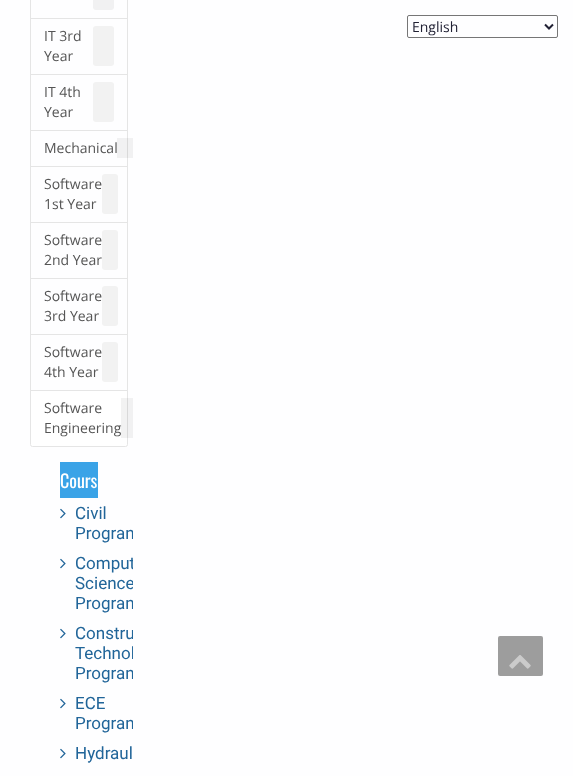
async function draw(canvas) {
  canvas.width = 573
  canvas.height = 776
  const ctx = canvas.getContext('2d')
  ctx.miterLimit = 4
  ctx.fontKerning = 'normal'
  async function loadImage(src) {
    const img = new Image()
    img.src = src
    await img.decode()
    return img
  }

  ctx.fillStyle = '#fefeff'
  ctx.fillRect(0, 0, 573, 776)
  ctx.beginPath()
  ctx.roundRect(407.5, 15.5, 150, 22, 1.5)
  ctx.strokeStyle = '#767676'
  ctx.stroke()
  ctx.beginPath()
  ctx.moveTo(545, 24.5)
  ctx.lineTo(549, 28.5)
  ctx.lineTo(553, 24.5)
  ctx.strokeStyle = '#212134'
  ctx.lineWidth = 2
  ctx.stroke()
  ctx.font = '14px Open Sans'
  ctx.fillStyle = '#212134'
  ctx.fillText('English', 412, 32)
  ctx.strokeStyle = '#e5e5e5'
  ctx.lineWidth = 1
  ctx.strokeRect(30.5, -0.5, 97, 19)
  ctx.fillStyle = '#f1f1f2'
  ctx.beginPath()
  ctx.roundRect(93, -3, 21, 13, 3)
  ctx.fill()
  ctx.strokeRect(30.5, 18.5, 97, 56)
  ctx.fillStyle = '#555'
  ctx.fillText('IT 3rd', 44, 41)
  ctx.fillStyle = '#f2f2f2'
  ctx.beginPath()
  ctx.roundRect(93, 26, 21, 40, 3)
  ctx.fill()
  ctx.fillStyle = '#555'
  ctx.fillText('Year', 44, 61)
  ctx.strokeRect(30.5, 74.5, 97, 56)
  ctx.fillText('IT 4th', 44, 97)
  ctx.fillStyle = '#f2f2f2'
  ctx.beginPath()
  ctx.roundRect(93, 82, 21, 40, 3)
  ctx.fill()
  ctx.fillStyle = '#555'
  ctx.fillText('Year', 44, 117)
  ctx.strokeRect(30.5, 130.5, 97, 36)
  ctx.fillText('Mechanical', 44, 153)
  ctx.fillStyle = '#0000000d'
  ctx.fillRect(117, 138, 16, 20)
  ctx.strokeRect(30.5, 166.5, 97, 56)
  ctx.fillStyle = '#555'
  ctx.fillText('Software', 44, 189)
  ctx.fillStyle = '#f2f2f2'
  ctx.beginPath()
  ctx.roundRect(102, 174, 16, 40, 3)
  ctx.fill()
  ctx.fillStyle = '#555'
  ctx.fillText('1st Year', 44, 209)
  ctx.strokeRect(30.5, 222.5, 97, 56)
  ctx.fillText('Software', 44, 245)
  ctx.fillStyle = '#f2f2f2'
  ctx.beginPath()
  ctx.roundRect(102, 230, 16, 40, 3)
  ctx.fill()
  ctx.fillStyle = '#555'
  ctx.fillText('2nd Year', 44, 265)
  ctx.strokeRect(30.5, 278.5, 97, 56)
  ctx.fillText('Software', 44, 301)
  ctx.fillStyle = '#f2f2f2'
  ctx.beginPath()
  ctx.roundRect(102, 286, 16, 40, 3)
  ctx.fill()
  ctx.fillStyle = '#555'
  ctx.fillText('3rd Year', 44, 321)
  ctx.strokeRect(30.5, 334.5, 97, 56)
  ctx.fillText('Software', 44, 357)
  ctx.fillStyle = '#f2f2f2'
  ctx.beginPath()
  ctx.roundRect(102, 342, 16, 40, 3)
  ctx.fill()
  ctx.fillStyle = '#555'
  ctx.fillText('4th Year', 44, 377)
  ctx.fillStyle = '#fff'
  ctx.beginPath()
  ctx.roundRect(30.5, 390.5, 97, 56, [0, 0, 2, 2])
  ctx.fill()
  ctx.stroke()
  ctx.fillStyle = '#555'
  ctx.fillText('Software', 44, 413)
  ctx.fillStyle = '#0000000d'
  ctx.fillRect(121, 398, 12, 40)
  ctx.fillStyle = '#555'
  ctx.fillText('Engineering', 44, 433)
  ctx.fillStyle = '#3aa3e7'
  ctx.fillRect(60, 462, 38, 36)
  ctx.font = '18px Oswald'
  ctx.fillStyle = '#fff'
  ctx.fillText('Cours', 60, 488)
  ctx.drawImage(await loadImage('image0.png'), 60, 508, 6, 11)
  ctx.font = '17px Roboto'
  ctx.fillStyle = '#216599'
  ctx.fillText('Civil', 75, 519)
  ctx.save()
  ctx.beginPath()
  ctx.rect(15, 457, 118, 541)
  ctx.clip()
  ctx.fillText('Program', 75, 539)
  ctx.restore()
  ctx.drawImage(await loadImage('image0.png'), 60, 558, 6, 11)
  ctx.save()
  ctx.beginPath()
  ctx.rect(15, 457, 118, 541)
  ctx.clip()
  ctx.fillText('Comput', 75, 569)
  ctx.fillText('Science', 75, 589)
  ctx.fillText('Program', 75, 609)
  ctx.restore()
  ctx.drawImage(await loadImage('image0.png'), 60, 628, 6, 11)
  ctx.save()
  ctx.beginPath()
  ctx.rect(15, 457, 118, 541)
  ctx.clip()
  ctx.fillText('Constru', 75, 639)
  ctx.fillText('Technol', 75, 659)
  ctx.fillText('Program', 75, 679)
  ctx.restore()
  ctx.drawImage(await loadImage('image0.png'), 60, 698, 6, 11)
  ctx.fillText('ECE', 75, 709)
  ctx.save()
  ctx.beginPath()
  ctx.rect(15, 457, 118, 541)
  ctx.clip()
  ctx.fillText('Program', 75, 729)
  ctx.restore()
  ctx.drawImage(await loadImage('image0.png'), 60, 748, 6, 11)
  ctx.fillText('Hydraul', 75, 759)
  ctx.fillStyle = '#9d9d9d'
  ctx.beginPath()
  ctx.roundRect(498, 636, 45, 40, 2)
  ctx.fill()
  ctx.drawImage(await loadImage('image1.png'), 509, 655, 22, 14)
}

draw(document.querySelector('canvas'))
